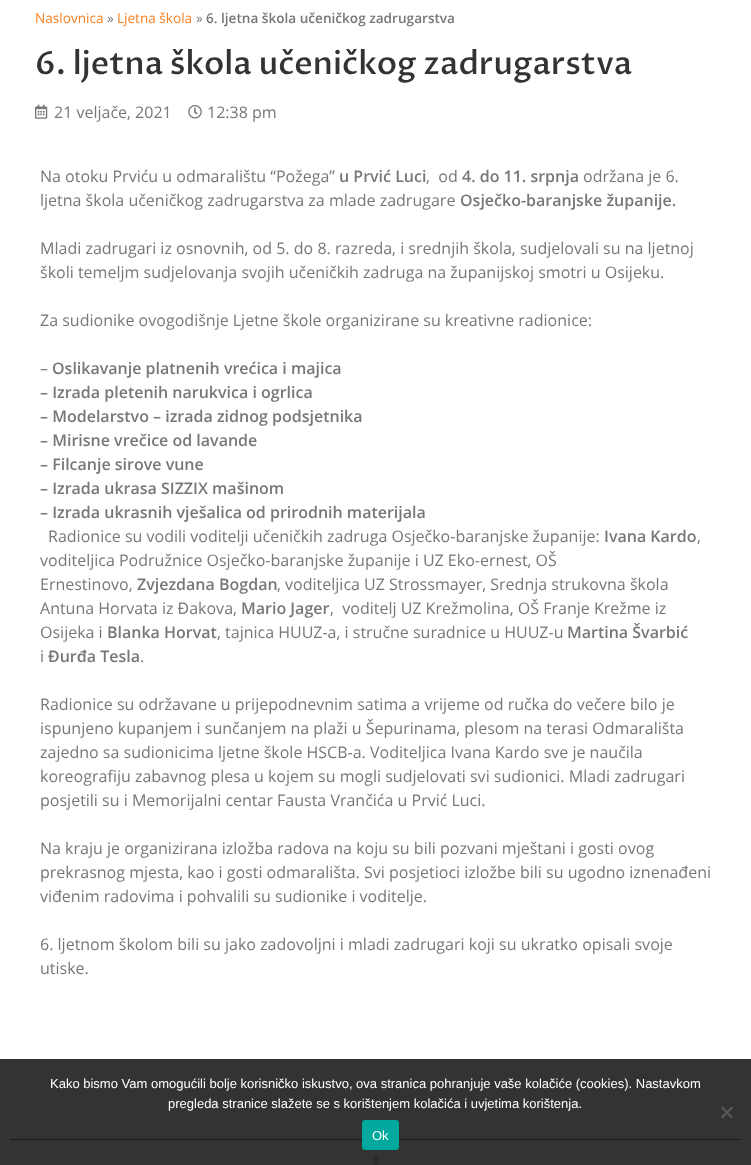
async function draw(canvas) {
  canvas.width = 751
  canvas.height = 1165
  const ctx = canvas.getContext('2d')
  ctx.miterLimit = 4
  ctx.fontKerning = 'normal'
  async function loadImage(src) {
    const img = new Image()
    img.src = src
    await img.decode()
    return img
  }

  ctx.fillStyle = '#fff'
  ctx.fillRect(0, 0, 751, 1165)
  ctx.fillStyle = '#333'
  ctx.fillRect(0, 1059, 751, 106)
  ctx.font = '13.6px Open Sans'
  ctx.fillStyle = '#f88123'
  ctx.fillText('Naslovnica', 35, 23)
  ctx.fillStyle = '#777'
  ctx.fillText('»', 107, 23)
  ctx.fillStyle = '#f88123'
  ctx.fillText('Ljetna škola', 117, 23)
  ctx.fillStyle = '#777'
  ctx.fillText('»', 196, 23)
  ctx.font = '600 13.6px Open Sans'
  ctx.fillText('6. ljetna škola učeničkog zadrugarstva', 206, 23)
  ctx.font = '500 32px Proza Libre'
  ctx.fillStyle = '#333'
  ctx.fillText('6. ljetna škola učeničkog zadrugarstva', 35, 74)
  ctx.drawImage(await loadImage('image0.png'), 35, 104, 13, 15)
  ctx.font = '16px Open Sans'
  ctx.fillStyle = '#777'
  ctx.fillText('21 veljače, 2021', 54, 118)
  ctx.drawImage(await loadImage('image1.png'), 188, 105, 14, 14)
  ctx.fillText('12:38 pm', 207, 118)
  ctx.fillText('Na otoku Prviću u odmaralištu “Požega”', 40, 182)
  ctx.font = '600 16px Open Sans'
  ctx.fillText('u Prvić Luci', 339, 182)
  ctx.font = '16px Open Sans'
  ctx.fillText(',  od', 426, 182)
  ctx.font = '600 16px Open Sans'
  ctx.fillText('4. do 11. srpnja', 462, 182)
  ctx.font = '16px Open Sans'
  ctx.fillText('održana je 6.', 583, 182)
  ctx.fillText('ljetna škola učeničkog zadrugarstva za mlade zadrugare', 40, 206)
  ctx.font = '600 16px Open Sans'
  ctx.fillText('Osječko-baranjske županije.', 460, 206)
  ctx.font = '16px Open Sans'
  ctx.fillText('Mladi zadrugari iz osnovnih, od 5. do 8. razreda, i srednjih škola, sudjelovali su na ljetnoj', 40, 254)
  ctx.fillText('školi temeljm sudjelovanja svojih učeničkih zadruga na županijskoj smotri u Osijeku.', 40, 278)
  ctx.fillText('Za sudionike ovogodišnje Ljetne škole organizirane su kreativne radionice:', 40, 326)
  ctx.fillText('–', 40, 374)
  ctx.font = '600 16px Open Sans'
  ctx.fillText('Oslikavanje platnenih vrećica i majica', 52, 374)
  ctx.fillText('– Izrada pletenih narukvica i ogrlica', 40, 398)
  ctx.fillText('– Modelarstvo – izrada zidnog podsjetnika', 40, 422)
  ctx.fillText('– Mirisne vrečice od lavande', 40, 446)
  ctx.fillText('– Filcanje sirove vune', 40, 470)
  ctx.fillText('– Izrada ukrasa SIZZIX mašinom', 40, 494)
  ctx.fillText('– Izrada ukrasnih vješalica od prirodnih materijala', 40, 518)
  ctx.font = '16px Open Sans'
  ctx.fillText('Radionice su vodili voditelji učeničkih zadruga Osječko-baranjske županije:', 48, 542)
  ctx.font = '600 16px Open Sans'
  ctx.fillText('Ivana Kardo', 604, 542)
  ctx.font = '16px Open Sans'
  ctx.fillText(',', 697, 542)
  ctx.fillText('voditeljica Podružnice Osječko-baranjske županije i UZ Eko-ernest, OŠ', 40, 566)
  ctx.fillText('Ernestinovo,', 40, 590)
  ctx.font = '600 16px Open Sans'
  ctx.fillText('Zvjezdana Bogdan', 137, 590)
  ctx.font = '16px Open Sans'
  ctx.fillText(', voditeljica UZ Strossmayer, Srednja strukovna škola', 277, 590)
  ctx.fillText('Antuna Horvata iz Đakova,', 40, 614)
  ctx.font = '600 16px Open Sans'
  ctx.fillText('Mario Jager', 241, 614)
  ctx.font = '16px Open Sans'
  ctx.fillText(',  voditelj UZ Krežmolina, OŠ Franje Krežme iz', 330, 614)
  ctx.fillText('Osijeka i', 40, 638)
  ctx.font = '600 16px Open Sans'
  ctx.fillText('Blanka Horvat', 107, 638)
  ctx.font = '16px Open Sans'
  ctx.fillText(', tajnica HUUZ-a, i stručne suradnice u HUUZ-u', 217, 638)
  ctx.font = '600 16px Open Sans'
  ctx.fillText('Martina Švarbić', 567, 638)
  ctx.font = '16px Open Sans'
  ctx.fillText('i', 40, 662)
  ctx.font = '600 16px Open Sans'
  ctx.fillText('Đurđa Tesla', 48, 662)
  ctx.font = '16px Open Sans'
  ctx.fillText('.', 140, 662)
  ctx.fillText('Radionice su održavane u prijepodnevnim satima a vrijeme od ručka do večere bilo je', 40, 710)
  ctx.fillText('ispunjeno kupanjem i sunčanjem na plaži u Šepurinama, plesom na terasi Odmarališta', 40, 734)
  ctx.fillText('zajedno sa sudionicima ljetne škole HSCB-a. Voditeljica Ivana Kardo sve je naučila', 40, 758)
  ctx.fillText('koreografiju zabavnog plesa u kojem su mogli sudjelovati svi sudionici. Mladi zadrugari', 40, 782)
  ctx.fillText('posjetili su i Memorijalni centar Fausta Vrančića u Prvić Luci.', 40, 806)
  ctx.fillText('Na kraju je organizirana izložba radova na koju su bili pozvani mještani i gosti ovog', 40, 854)
  ctx.fillText('prekrasnog mjesta, kao i gosti odmarališta. Svi posjetioci izložbe bili su ugodno iznenađeni', 40, 878)
  ctx.fillText('viđenim radovima i pohvalili su sudionike i voditelje.', 40, 902)
  ctx.fillText('6. ljetnom školom bili su jako zadovoljni i mladi zadrugari koji su ukratko opisali svoje', 40, 950)
  ctx.fillText('utiske.', 40, 974)
  ctx.fillStyle = '#181818'
  ctx.fillRect(10, 1139, 731, 1)
  ctx.fillStyle = '#2b2b2c'
  ctx.fillRect(374, 1155, 4, 10)
  ctx.font = '13px Liberation Sans'
  ctx.fillStyle = '#fff'
  ctx.fillText('Kako bismo Vam omogućili bolje korisničko iskustvo, ova stranica pohranjuje vaše kolačiće (cookies). Nastavkom', 50, 1088)
  ctx.fillText('pregleda stranice slažete se s korištenjem kolačića i uvjetima korištenja.', 168, 1108)
  ctx.fillStyle = '#5a5a5a'
  ctx.beginPath()
  ctx.moveTo(731.5, 1106.5)
  ctx.lineTo(733, 1108)
  ctx.lineTo(722.5, 1118.5)
  ctx.lineTo(721, 1117)
  ctx.closePath()
  ctx.fill()
  ctx.beginPath()
  ctx.moveTo(721, 1108)
  ctx.lineTo(722.5, 1106.5)
  ctx.lineTo(733, 1117)
  ctx.lineTo(731.5, 1118.5)
  ctx.closePath()
  ctx.fill()
  ctx.fillStyle = '#00a99d'
  ctx.beginPath()
  ctx.roundRect(362, 1120, 37, 30, 3)
  ctx.fill()
  ctx.fillStyle = '#fff'
  ctx.fillText('Ok', 372, 1140)
}

draw(document.querySelector('canvas'))
